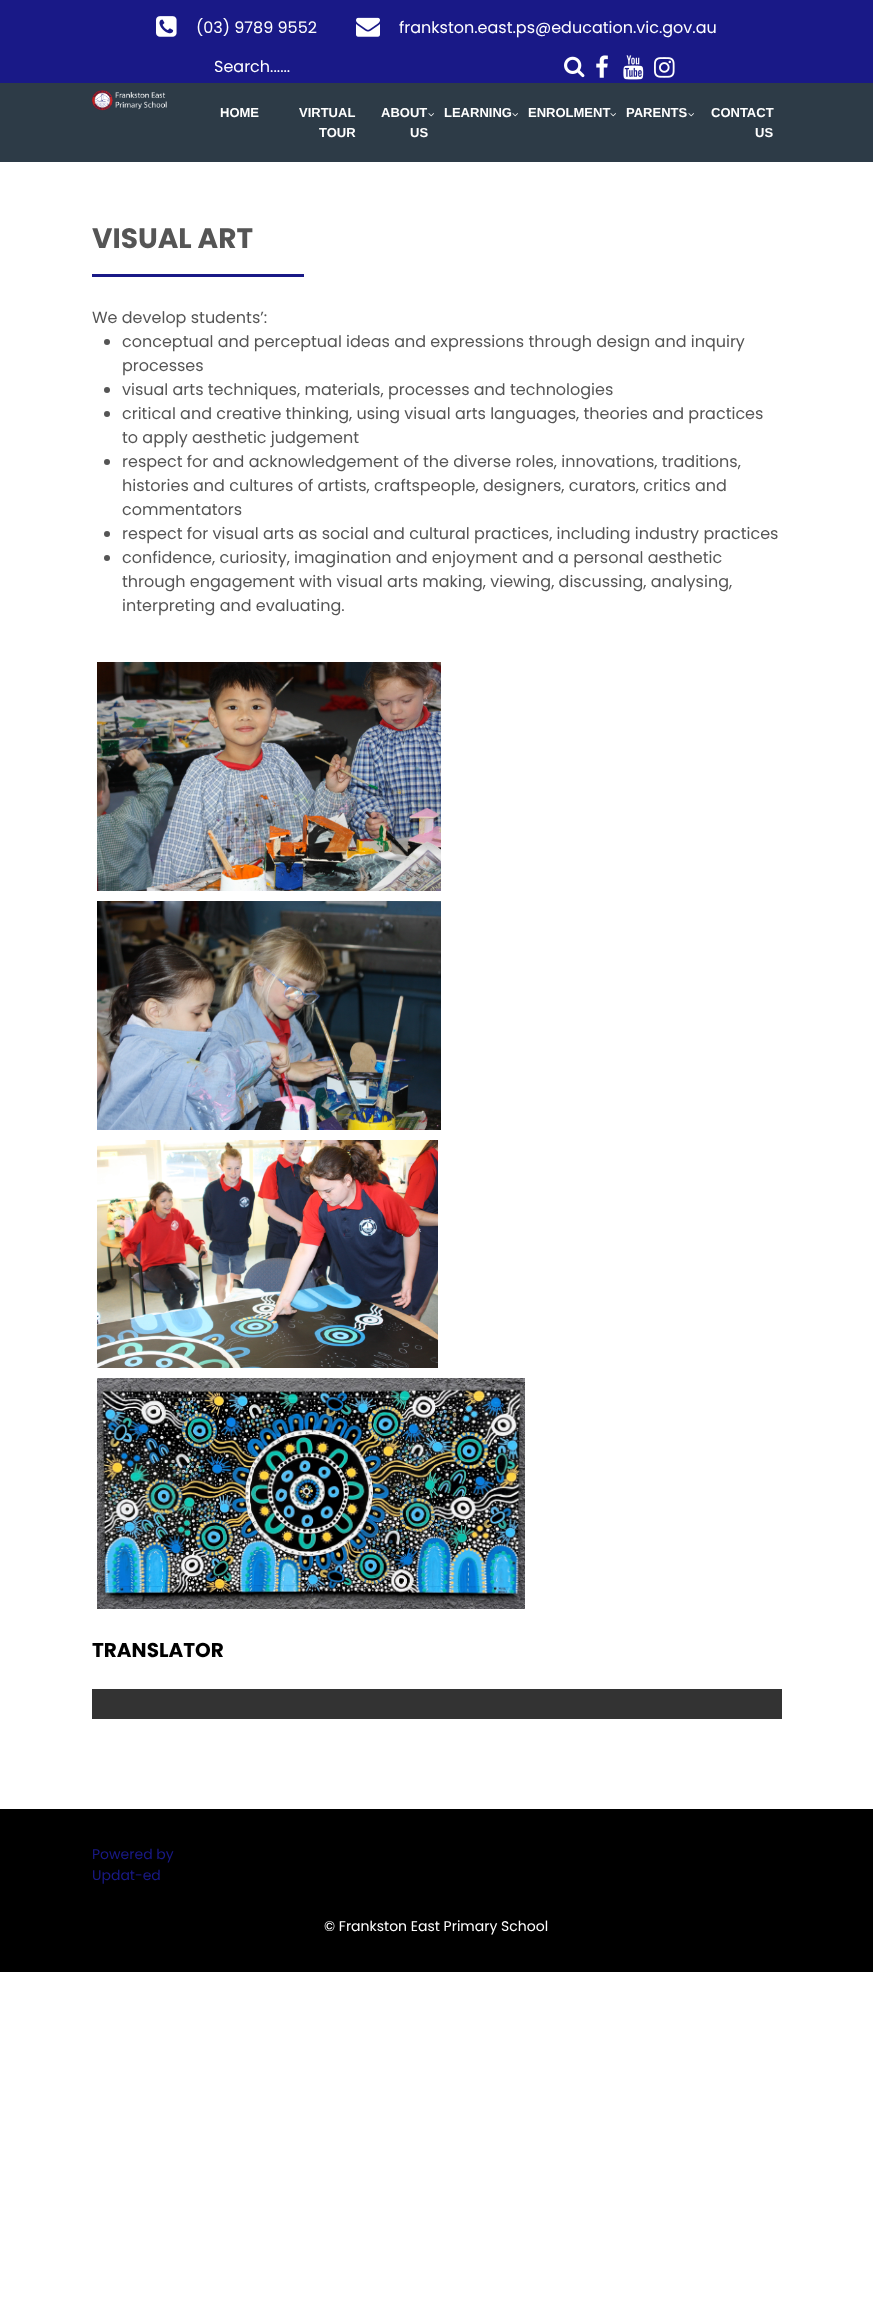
async function draw(canvas) {
  canvas.width = 873
  canvas.height = 2311
  const ctx = canvas.getContext('2d')
  ctx.miterLimit = 4
  ctx.fontKerning = 'normal'
  async function loadImage(src) {
    const img = new Image()
    img.src = src
    await img.decode()
    return img
  }

  ctx.fillStyle = '#fff'
  ctx.fillRect(0, 0, 873, 2311)
  ctx.fillStyle = '#191987'
  ctx.fillRect(0, 0, 873, 83)
  ctx.drawImage(await loadImage('image0.png'), 156, 16, 21, 21)
  ctx.font = '16px Poppins'
  ctx.fillStyle = '#fff'
  ctx.fillText('(03) 9789 9552', 196, 33)
  ctx.drawImage(await loadImage('image1.png'), 356, 17, 24, 20)
  ctx.fillText('frankston.east.ps@education.vic.gov.au', 399, 33)
  ctx.fillText('Search......', 214, 72)
  ctx.drawImage(await loadImage('image2.png'), 564, 56, 21, 22)
  ctx.drawImage(await loadImage('image3.png'), 596, 55, 12, 23)
  ctx.drawImage(await loadImage('image4.png'), 623, 55, 21, 25)
  ctx.drawImage(await loadImage('image5.png'), 654, 57, 21, 21)
  ctx.fillStyle = '#2d3b47'
  ctx.fillRect(0, 83, 873, 79)
  ctx.drawImage(await loadImage('image6.png'), 92, 90, 75, 21)
  ctx.font = 'bold 13px Liberation Sans'
  ctx.fillStyle = '#fff'
  ctx.fillText('HOME', 220, 117)
  ctx.fillText('VIRTUAL', 299, 117)
  ctx.fillText('TOUR', 319, 137)
  ctx.fillText('ABOUT', 381, 117)
  ctx.drawImage(await loadImage('image7.png'), 428, 113, 6, 4)
  ctx.fillText('US', 410, 137)
  ctx.fillText('LEARNING', 444, 117)
  ctx.drawImage(await loadImage('image7.png'), 512, 113, 6, 4)
  ctx.fillText('ENROLMENT', 528, 117)
  ctx.drawImage(await loadImage('image7.png'), 610, 113, 6, 4)
  ctx.fillText('PARENTS', 626, 117)
  ctx.drawImage(await loadImage('image7.png'), 688, 113, 6, 4)
  ctx.fillText('CONTACT', 711, 117)
  ctx.fillText('US', 755, 137)
  ctx.font = 'bold 28px Poppins'
  ctx.fillStyle = '#555'
  ctx.fillText('VISUAL ART', 92, 248)
  ctx.fillStyle = '#191987'
  ctx.fillRect(92, 274, 212, 3)
  ctx.font = '16px Poppins'
  ctx.fillStyle = '#555'
  ctx.fillText('We develop students’:', 92, 323)
  ctx.beginPath()
  ctx.arc(107, 342, 3, 0, 2 * Math.PI)
  ctx.fill()
  ctx.fillText('conceptual and perceptual ideas and expressions through design and inquiry', 122, 347)
  ctx.fillText('processes', 122, 371)
  ctx.beginPath()
  ctx.arc(107, 390, 3, 0, 2 * Math.PI)
  ctx.fill()
  ctx.fillText('visual arts techniques, materials, processes and technologies', 122, 395)
  ctx.beginPath()
  ctx.arc(107, 414, 3, 0, 2 * Math.PI)
  ctx.fill()
  ctx.fillText('critical and creative thinking, using visual arts languages, theories and practices', 122, 419)
  ctx.fillText('to apply aesthetic judgement', 122, 443)
  ctx.beginPath()
  ctx.arc(107, 462, 3, 0, 2 * Math.PI)
  ctx.fill()
  ctx.fillText('respect for and acknowledgement of the diverse roles, innovations, traditions,', 122, 467)
  ctx.fillText('histories and cultures of artists, craftspeople, designers, curators, critics and', 122, 491)
  ctx.fillText('commentators', 122, 515)
  ctx.beginPath()
  ctx.arc(107, 534, 3, 0, 2 * Math.PI)
  ctx.fill()
  ctx.fillText('respect for visual arts as social and cultural practices, including industry practices', 122, 539)
  ctx.beginPath()
  ctx.arc(107, 558, 3, 0, 2 * Math.PI)
  ctx.fill()
  ctx.fillText('confidence, curiosity, imagination and enjoyment and a personal aesthetic', 122, 563)
  ctx.fillText('through engagement with visual arts making, viewing, discussing, analysing,', 122, 587)
  ctx.fillText('interpreting and evaluating.', 122, 611)
  ctx.drawImage(await loadImage('image8.png'), 97, 662, 344, 229)
  ctx.drawImage(await loadImage('image9.png'), 97, 901, 344, 229)
  ctx.drawImage(await loadImage('image10.png'), 97, 1140, 341, 228)
  ctx.drawImage(await loadImage('image11.png'), 97, 1378, 428, 231)
  ctx.font = 'bold 20px Poppins'
  ctx.fillStyle = '#000'
  ctx.fillText('TRANSLATOR', 92, 1657)
  ctx.fillStyle = '#333'
  ctx.fillRect(92, 1689, 690, 30)
  ctx.fillStyle = '#000'
  ctx.fillRect(0, 1809, 873, 163)
  ctx.font = '14px Poppins'
  ctx.fillStyle = '#191987'
  ctx.fillText('Powered by', 92, 1859)
  ctx.fillText('Updat-ed', 92, 1880)
  ctx.fillStyle = '#fff'
  ctx.fillText('© Frankston East Primary School', 324, 1931)
}

draw(document.querySelector('canvas'))
